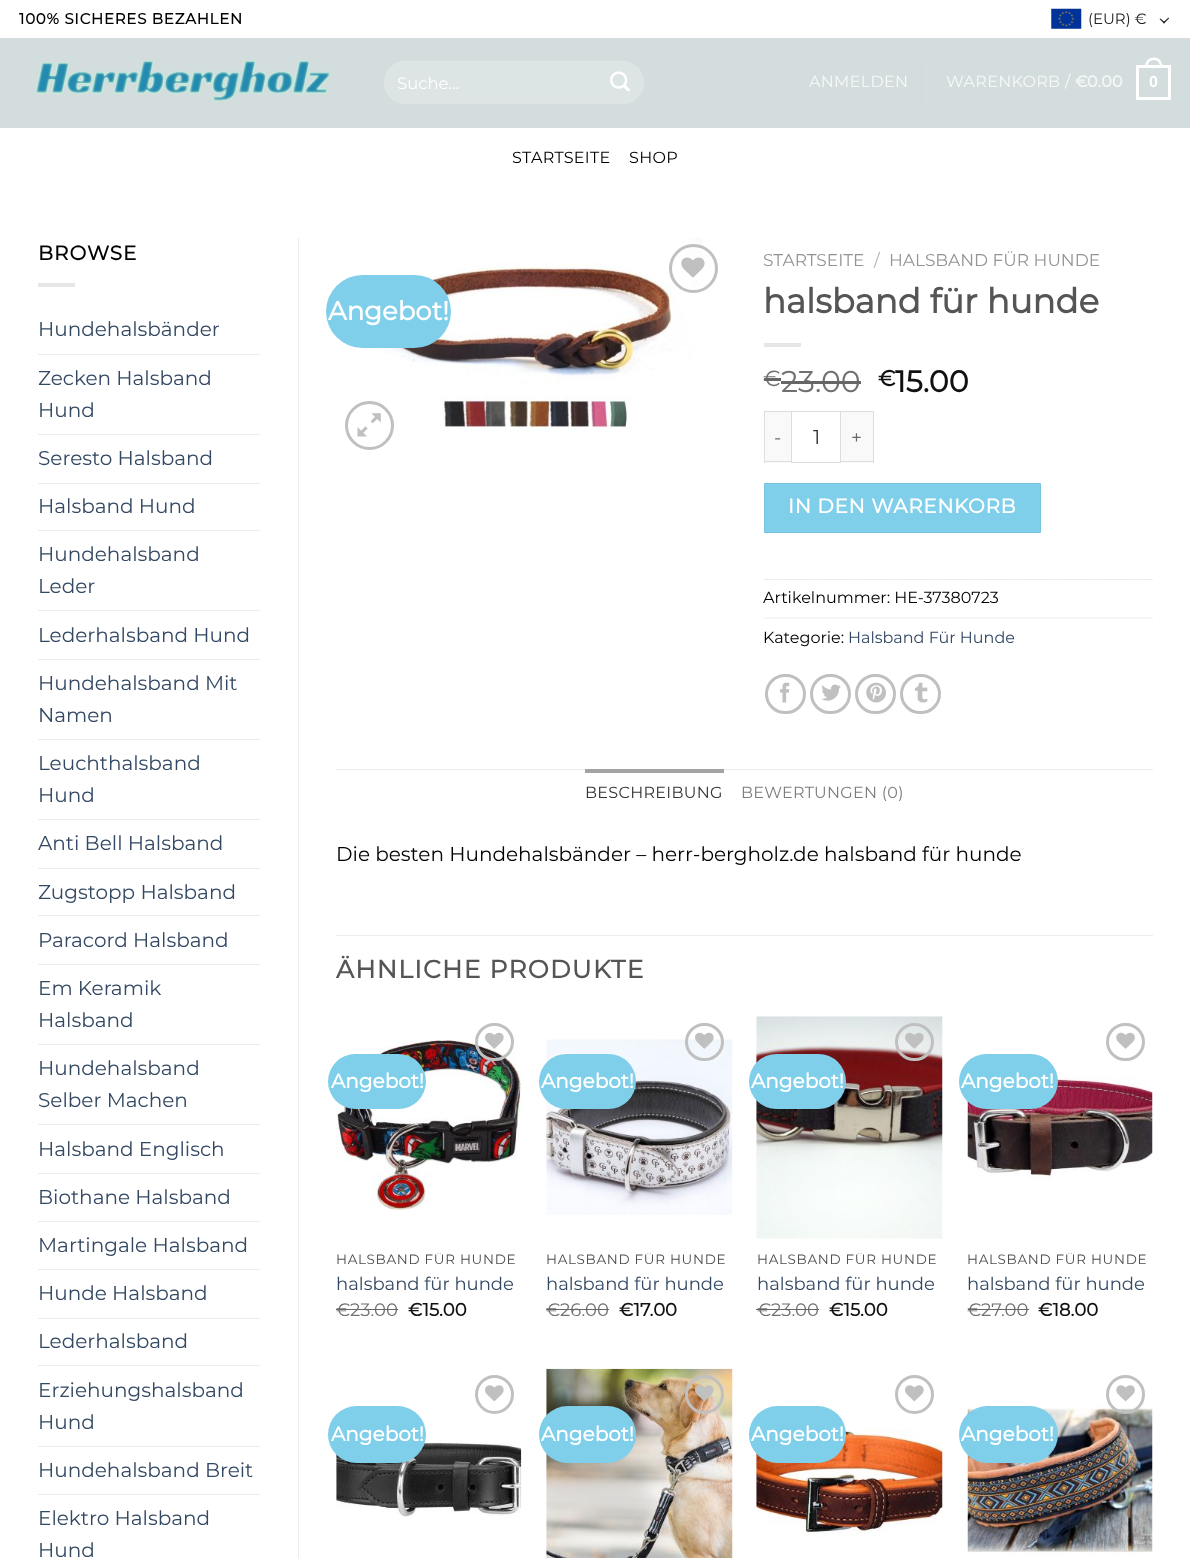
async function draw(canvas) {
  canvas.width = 1190
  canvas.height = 1558
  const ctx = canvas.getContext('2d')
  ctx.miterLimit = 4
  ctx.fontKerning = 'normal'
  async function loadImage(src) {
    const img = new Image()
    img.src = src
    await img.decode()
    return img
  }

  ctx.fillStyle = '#fff'
  ctx.fillRect(0, 0, 1190, 1558)
  ctx.letterSpacing = '0.75px'
  ctx.font = 'bold 15px Montserrat'
  ctx.fillStyle = '#000'
  ctx.fillText('100% SICHERES BEZAHLEN', 19, 24)
  ctx.drawImage(await loadImage('image0.png'), 1051, 8, 31, 21)
  ctx.letterSpacing = '0px'
  ctx.font = '15px Montserrat'
  ctx.fillStyle = '#212121'
  ctx.fillText('(EUR) €', 1088, 24)
  ctx.beginPath()
  ctx.moveTo(1168.5, 17.5)
  ctx.lineTo(1169, 18.5)
  ctx.lineTo(1164, 23.5)
  ctx.lineTo(1163, 22.5)
  ctx.closePath()
  ctx.fill()
  ctx.beginPath()
  ctx.moveTo(1160.5, 18.5)
  ctx.lineTo(1165, 22.5)
  ctx.lineTo(1164, 23.5)
  ctx.lineTo(1159.5, 19)
  ctx.closePath()
  ctx.fill()
  ctx.fillStyle = '#d4dddd'
  ctx.fillRect(0, 38, 1190, 90)
  ctx.drawImage(await loadImage('image1.png'), 35, 60, 296, 42)
  ctx.fillStyle = '#dde4e4'
  ctx.beginPath()
  ctx.roundRect(384, 61, 260, 43, 21.5)
  ctx.fill()
  ctx.beginPath()
  ctx.roundRect(384.5, 61.5, 259, 42, 21)
  ctx.strokeStyle = '#ffffff17'
  ctx.stroke()
  ctx.font = '16.5px Montserrat'
  ctx.fillStyle = '#fff'
  ctx.fillText('Suche…', 397, 89)
  ctx.drawImage(await loadImage('image2.png'), 610, 71, 20, 21)
  ctx.letterSpacing = '0.3px'
  ctx.font = '16px Montserrat'
  ctx.fillStyle = '#f6f8f8'
  ctx.fillText('ANMELDEN', 809, 87)
  ctx.fillStyle = '#d8e0e0'
  ctx.fillRect(926, 64, 1, 37)
  ctx.fillStyle = '#f6f8f8'
  ctx.fillText('WARENKORB /', 946, 87)
  ctx.font = 'bold 16px Montserrat'
  ctx.fillText('€', 1075, 87)
  ctx.fillText('0.00', 1087, 87)
  ctx.strokeStyle = '#fff'
  ctx.lineWidth = 3
  ctx.strokeRect(1137.5, 66.5, 32, 32)
  ctx.fillStyle = '#fff'
  ctx.beginPath()
  ctx.moveTo(1154, 57.5)
  ctx.bezierCurveTo(1159.5, 57.5, 1162.5, 62, 1162.5, 67.5)
  ctx.lineTo(1145, 67.5)
  ctx.bezierCurveTo(1145, 62, 1148, 57.5, 1154, 57.5)
  ctx.closePath()
  ctx.moveTo(1154, 60)
  ctx.bezierCurveTo(1158, 60, 1160, 63.5, 1160, 67.5)
  ctx.lineTo(1147.5, 67.5)
  ctx.bezierCurveTo(1147.5, 63.5, 1149.5, 60, 1154, 60)
  ctx.closePath()
  ctx.fill('evenodd')
  ctx.font = 'bold 16px Liberation Sans'
  ctx.fillText('0', 1149, 87)
  ctx.font = '16px Montserrat'
  ctx.fillStyle = '#000'
  ctx.fillText('STARTSEITE', 512, 163)
  ctx.fillText('SHOP', 629, 163)
  ctx.letterSpacing = '1px'
  ctx.font = 'bold 20px Montserrat'
  ctx.fillText('BROWSE', 38, 260)
  ctx.fillStyle = '#e6e6e6'
  ctx.fillRect(38, 283, 37, 4)
  ctx.letterSpacing = '0px'
  ctx.font = '20px Montserrat'
  ctx.fillStyle = '#334862'
  ctx.fillText('Hundehalsbänder', 38, 336)
  ctx.fillStyle = '#ececec'
  ctx.fillRect(38, 354, 222, 1)
  ctx.fillStyle = '#334862'
  ctx.fillText('Zecken Halsband', 38, 385)
  ctx.fillText('Hund', 38, 417)
  ctx.fillStyle = '#ececec'
  ctx.fillRect(38, 434, 222, 1)
  ctx.fillStyle = '#334862'
  ctx.fillText('Seresto Halsband', 38, 465)
  ctx.fillStyle = '#ececec'
  ctx.fillRect(38, 483, 222, 1)
  ctx.fillStyle = '#334862'
  ctx.fillText('Halsband Hund', 38, 513)
  ctx.fillStyle = '#ececec'
  ctx.fillRect(38, 530, 222, 1)
  ctx.fillStyle = '#334862'
  ctx.fillText('Hundehalsband', 38, 561)
  ctx.fillText('Leder', 38, 593)
  ctx.fillStyle = '#ececec'
  ctx.fillRect(38, 610, 222, 1)
  ctx.fillStyle = '#334862'
  ctx.fillText('Lederhalsband Hund', 38, 642)
  ctx.fillStyle = '#ececec'
  ctx.fillRect(38, 659, 222, 1)
  ctx.fillStyle = '#334862'
  ctx.fillText('Hundehalsband Mit', 38, 690)
  ctx.fillText('Namen', 38, 722)
  ctx.fillStyle = '#ececec'
  ctx.fillRect(38, 739, 222, 1)
  ctx.fillStyle = '#334862'
  ctx.fillText('Leuchthalsband', 38, 770)
  ctx.fillText('Hund', 38, 802)
  ctx.fillStyle = '#ececec'
  ctx.fillRect(38, 819, 222, 1)
  ctx.fillStyle = '#334862'
  ctx.fillText('Anti Bell Halsband', 38, 850)
  ctx.fillStyle = '#ececec'
  ctx.fillRect(38, 868, 222, 1)
  ctx.fillStyle = '#334862'
  ctx.fillText('Zugstopp Halsband', 38, 899)
  ctx.fillStyle = '#ececec'
  ctx.fillRect(38, 915, 222, 1)
  ctx.fillStyle = '#334862'
  ctx.fillText('Paracord Halsband', 38, 947)
  ctx.fillStyle = '#ececec'
  ctx.fillRect(38, 964, 222, 1)
  ctx.fillStyle = '#334862'
  ctx.fillText('Em Keramik', 38, 995)
  ctx.fillText('Halsband', 38, 1027)
  ctx.fillStyle = '#ececec'
  ctx.fillRect(38, 1044, 222, 1)
  ctx.fillStyle = '#334862'
  ctx.fillText('Hundehalsband', 38, 1075)
  ctx.fillText('Selber Machen', 38, 1107)
  ctx.fillStyle = '#ececec'
  ctx.fillRect(38, 1124, 222, 1)
  ctx.fillStyle = '#334862'
  ctx.fillText('Halsband Englisch', 38, 1156)
  ctx.fillStyle = '#ececec'
  ctx.fillRect(38, 1173, 222, 1)
  ctx.fillStyle = '#334862'
  ctx.fillText('Biothane Halsband', 38, 1204)
  ctx.fillStyle = '#ececec'
  ctx.fillRect(38, 1221, 222, 1)
  ctx.fillStyle = '#334862'
  ctx.fillText('Martingale Halsband', 38, 1252)
  ctx.fillStyle = '#ececec'
  ctx.fillRect(38, 1269, 222, 1)
  ctx.fillStyle = '#334862'
  ctx.fillText('Hunde Halsband', 38, 1300)
  ctx.fillStyle = '#ececec'
  ctx.fillRect(38, 1318, 222, 1)
  ctx.fillStyle = '#334862'
  ctx.fillText('Lederhalsband', 38, 1348)
  ctx.fillStyle = '#ececec'
  ctx.fillRect(38, 1365, 222, 1)
  ctx.fillStyle = '#334862'
  ctx.fillText('Erziehungshalsband', 38, 1397)
  ctx.fillText('Hund', 38, 1429)
  ctx.fillStyle = '#ececec'
  ctx.fillRect(38, 1446, 222, 1)
  ctx.fillStyle = '#334862'
  ctx.fillText('Hundehalsband Breit', 38, 1477)
  ctx.fillStyle = '#ececec'
  ctx.fillRect(38, 1494, 222, 1)
  ctx.fillStyle = '#334862'
  ctx.fillText('Elektro Halsband', 38, 1525)
  ctx.fillText('Hund', 38, 1557)
  ctx.fillStyle = '#ececec'
  ctx.fillRect(298, 238, 1, 1320)
  ctx.drawImage(await loadImage('image3.png'), 375, 238, 328, 195)
  ctx.beginPath()
  ctx.arc(693.5, 268.5, 23, 0, 2 * Math.PI)
  ctx.strokeStyle = '#c0c0c0'
  ctx.stroke()
  ctx.drawImage(await loadImage('image4.png'), 681, 257, 24, 21)
  ctx.fillStyle = '#7fcfea'
  ctx.beginPath()
  ctx.roundRect(326, 275, 125, 73, 36.5)
  ctx.fill()
  ctx.font = 'bold 26px Montserrat'
  ctx.fillStyle = '#fff'
  ctx.fillText('Angebot!', 328, 320)
  ctx.beginPath()
  ctx.arc(369.5, 425.5, 23, 0, 2 * Math.PI)
  ctx.stroke()
  ctx.drawImage(await loadImage('image5.png'), 357, 413, 24, 24)
  ctx.font = '17px Montserrat'
  ctx.fillStyle = '#949494'
  ctx.fillText('STARTSEITE', 763, 266)
  ctx.fillStyle = '#b2b2b2'
  ctx.fillText('/', 874, 266)
  ctx.fillStyle = '#949494'
  ctx.fillText('HALSBAND FÜR HUNDE', 889, 266)
  ctx.font = 'bold 34px Montserrat'
  ctx.fillStyle = '#555'
  ctx.fillText('halsband für hunde', 763, 313)
  ctx.fillStyle = '#e6e6e6'
  ctx.fillRect(764, 343, 37, 4)
  ctx.font = '22px Montserrat'
  ctx.fillStyle = '#707070'
  ctx.fillText('€', 763, 386)
  ctx.fillStyle = '#666'
  ctx.fillRect(764, 378, 17, 3)
  ctx.font = '30px Montserrat'
  ctx.fillStyle = '#707070'
  ctx.fillText('23.00', 781, 392)
  ctx.fillStyle = '#666'
  ctx.fillRect(781, 381, 80, 3)
  ctx.font = 'bold 22px Montserrat'
  ctx.fillStyle = '#111'
  ctx.fillText('€', 878, 386)
  ctx.font = 'bold 30px Montserrat'
  ctx.fillText('15.00', 895, 392)
  ctx.fillStyle = '#f9f9f9'
  ctx.fillRect(765, 412, 26, 51)
  ctx.fillStyle = '#ddd'
  ctx.fillRect(764, 411, 27, 1)
  ctx.fillRect(764, 461, 27, 1)
  ctx.fillRect(764, 411, 1, 52)
  ctx.letterSpacing = '1px'
  ctx.font = '19px Montserrat'
  ctx.fillStyle = '#666'
  ctx.fillText('-', 774, 444)
  ctx.strokeStyle = '#ddd'
  ctx.lineWidth = 1
  ctx.strokeRect(791.5, 411.5, 49, 51)
  ctx.letterSpacing = '0px'
  ctx.font = '20px Montserrat'
  ctx.fillStyle = '#333'
  ctx.fillText('1', 813, 444)
  ctx.fillStyle = '#f9f9f9'
  ctx.fillRect(841, 412, 32, 51)
  ctx.fillStyle = '#ddd'
  ctx.fillRect(841, 411, 33, 1)
  ctx.fillRect(873, 411, 1, 52)
  ctx.fillRect(841, 461, 33, 1)
  ctx.letterSpacing = '1px'
  ctx.font = '19px Montserrat'
  ctx.fillStyle = '#666'
  ctx.fillText('+', 851, 444)
  ctx.fillStyle = '#7fcfea'
  ctx.beginPath()
  ctx.rect(764.5, 483.5, 276, 49)
  ctx.fill()
  ctx.strokeStyle = '#79c5de'
  ctx.stroke()
  ctx.letterSpacing = '0.6px'
  ctx.font = 'bold 20px Montserrat'
  ctx.fillStyle = '#fff'
  ctx.fillText('IN DEN WARENKORB', 788, 513)
  ctx.beginPath()
  ctx.moveTo(764, 579.5)
  ctx.lineTo(1152.5, 579.5)
  ctx.strokeStyle = '#ddd'
  ctx.lineWidth = 1.2
  ctx.setLineDash([1.25, 1.25])
  ctx.stroke()
  ctx.letterSpacing = '0px'
  ctx.font = '16px Montserrat'
  ctx.fillStyle = '#000'
  ctx.fillText('Artikelnummer: HE-37380723', 763, 603)
  ctx.beginPath()
  ctx.moveTo(764, 618)
  ctx.lineTo(1152.5, 618)
  ctx.stroke()
  ctx.fillText('Kategorie:', 763, 643)
  ctx.fillStyle = '#334862'
  ctx.fillText('Halsband Für Hunde', 848, 643)
  ctx.beginPath()
  ctx.roundRect(766.5, 675.5, 38, 37, 18.5)
  ctx.strokeStyle = '#c0c0c0'
  ctx.lineWidth = 3
  ctx.setLineDash([])
  ctx.stroke()
  ctx.drawImage(await loadImage('image6.png'), 780, 682, 10, 21)
  ctx.beginPath()
  ctx.roundRect(811.5, 675.5, 38, 37, 18.5)
  ctx.stroke()
  ctx.drawImage(await loadImage('image7.png'), 821, 684, 20, 17)
  ctx.beginPath()
  ctx.roundRect(856.5, 675.5, 38, 37, 18.5)
  ctx.stroke()
  ctx.drawImage(await loadImage('image8.png'), 866, 682, 20, 21)
  ctx.beginPath()
  ctx.roundRect(901.5, 675.5, 38, 37, 18.5)
  ctx.stroke()
  ctx.drawImage(await loadImage('image9.png'), 915, 682, 13, 21)
  ctx.fillStyle = '#ececec'
  ctx.fillRect(336, 769, 817, 1)
  ctx.fillStyle = '#a3a3a3'
  ctx.fillRect(585, 769, 139, 4)
  ctx.letterSpacing = '0.3px'
  ctx.fillStyle = '#333'
  ctx.fillText('BESCHREIBUNG', 585, 798)
  ctx.fillStyle = '#7d7d7d'
  ctx.fillText('BEWERTUNGEN (0)', 741, 798)
  ctx.letterSpacing = '0px'
  ctx.font = '20px Montserrat'
  ctx.fillStyle = '#000'
  ctx.fillText('Die besten Hundehalsbänder – herr-bergholz.de halsband für hunde', 336, 861)
  ctx.fillStyle = '#ececec'
  ctx.fillRect(336, 935, 817, 1)
  ctx.letterSpacing = '1.25px'
  ctx.font = 'bold 25px Montserrat'
  ctx.fillStyle = '#555'
  ctx.fillText('ÄHNLICHE PRODUKTE', 336, 978)
  ctx.drawImage(await loadImage('image11.png'), 336, 1040, 185, 170)
  ctx.fillStyle = '#7fcfea'
  ctx.beginPath()
  ctx.roundRect(328, 1054, 98, 55, 27.5)
  ctx.fill()
  ctx.letterSpacing = '0px'
  ctx.font = 'bold 20px Montserrat'
  ctx.fillStyle = '#fff'
  ctx.fillText('Angebot!', 331, 1088)
  ctx.beginPath()
  ctx.roundRect(476.5, 1024.5, 36, 35, 17.5)
  ctx.stroke()
  ctx.drawImage(await loadImage('image10.png'), 485, 1032, 19, 17)
  ctx.save()
  ctx.beginPath()
  ctx.rect(336, 1253, 185, 16)
  ctx.clip()
  ctx.letterSpacing = '0.7px'
  ctx.font = '13.5px Montserrat'
  ctx.fillStyle = '#4d4d4d'
  ctx.fillText('HALSBAND FÜR HUNDE', 336, 1264)
  ctx.restore()
  ctx.font = '18px Montserrat'
  ctx.fillStyle = '#334862'
  ctx.fillText('halsband für hunde', 336, 1290)
  ctx.fillStyle = '#707070'
  ctx.fillText('€23.00', 336, 1316)
  ctx.fillStyle = '#666'
  ctx.fillRect(336, 1309, 62, 1)
  ctx.font = 'bold 18px Montserrat'
  ctx.fillStyle = '#111'
  ctx.fillText('€15.00', 408, 1316)
  ctx.drawImage(await loadImage('image13.png'), 546, 1039, 187, 176)
  ctx.fillStyle = '#7fcfea'
  ctx.beginPath()
  ctx.roundRect(539, 1054, 97, 55, 27.5)
  ctx.fill()
  ctx.font = 'bold 20px Montserrat'
  ctx.fillStyle = '#fff'
  ctx.fillText('Angebot!', 541, 1088)
  ctx.beginPath()
  ctx.roundRect(686.5, 1024.5, 36, 35, 17.5)
  ctx.stroke()
  ctx.drawImage(await loadImage('image12.png'), 695, 1032, 19, 17)
  ctx.save()
  ctx.beginPath()
  ctx.rect(546, 1253, 187, 16)
  ctx.clip()
  ctx.letterSpacing = '0.7px'
  ctx.font = '13.5px Montserrat'
  ctx.fillStyle = '#4d4d4d'
  ctx.fillText('HALSBAND FÜR HUNDE', 546, 1264)
  ctx.restore()
  ctx.font = '18px Montserrat'
  ctx.fillStyle = '#334862'
  ctx.fillText('halsband für hunde', 546, 1290)
  ctx.fillStyle = '#707070'
  ctx.fillText('€26.00', 546, 1316)
  ctx.fillStyle = '#666'
  ctx.fillRect(546, 1309, 63, 1)
  ctx.font = 'bold 18px Montserrat'
  ctx.fillStyle = '#111'
  ctx.fillText('€17.00', 619, 1316)
  ctx.drawImage(await loadImage('image14.png'), 756, 1016, 187, 223)
  ctx.fillStyle = '#7fcfea'
  ctx.beginPath()
  ctx.roundRect(749, 1054, 97, 55, 27.5)
  ctx.fill()
  ctx.font = 'bold 20px Montserrat'
  ctx.fillStyle = '#fff'
  ctx.fillText('Angebot!', 751, 1088)
  ctx.beginPath()
  ctx.roundRect(896.5, 1024.5, 36, 35, 17.5)
  ctx.stroke()
  ctx.drawImage(await loadImage('image15.png'), 905, 1032, 19, 17)
  ctx.save()
  ctx.beginPath()
  ctx.rect(756, 1253, 187, 16)
  ctx.clip()
  ctx.letterSpacing = '0.7px'
  ctx.font = '13.5px Montserrat'
  ctx.fillStyle = '#4d4d4d'
  ctx.fillText('HALSBAND FÜR HUNDE', 757, 1264)
  ctx.restore()
  ctx.font = '18px Montserrat'
  ctx.fillStyle = '#334862'
  ctx.fillText('halsband für hunde', 757, 1290)
  ctx.fillStyle = '#707070'
  ctx.fillText('€23.00', 757, 1316)
  ctx.fillStyle = '#666'
  ctx.fillRect(756, 1309, 63, 1)
  ctx.font = 'bold 18px Montserrat'
  ctx.fillStyle = '#111'
  ctx.fillText('€15.00', 829, 1316)
  ctx.drawImage(await loadImage('image17.png'), 967, 1076, 186, 103)
  ctx.fillStyle = '#7fcfea'
  ctx.beginPath()
  ctx.roundRect(959, 1054, 99, 55, 27.5)
  ctx.fill()
  ctx.font = 'bold 20px Montserrat'
  ctx.fillStyle = '#fff'
  ctx.fillText('Angebot!', 961, 1088)
  ctx.beginPath()
  ctx.roundRect(1107.5, 1024.5, 36, 35, 17.5)
  ctx.stroke()
  ctx.drawImage(await loadImage('image16.png'), 1116, 1032, 19, 17)
  ctx.save()
  ctx.beginPath()
  ctx.rect(968, 1253, 185, 16)
  ctx.clip()
  ctx.letterSpacing = '0.7px'
  ctx.font = '13.5px Montserrat'
  ctx.fillStyle = '#4d4d4d'
  ctx.fillText('HALSBAND FÜR HUNDE', 967, 1264)
  ctx.restore()
  ctx.font = '18px Montserrat'
  ctx.fillStyle = '#334862'
  ctx.fillText('halsband für hunde', 967, 1290)
  ctx.fillStyle = '#707070'
  ctx.fillText('€27.00', 967, 1316)
  ctx.fillStyle = '#666'
  ctx.fillRect(968, 1309, 61, 1)
  ctx.font = 'bold 18px Montserrat'
  ctx.fillStyle = '#111'
  ctx.fillText('€18.00', 1038, 1316)
  ctx.beginPath()
  ctx.arc(494.5, 1394.5, 18, 0, 2 * Math.PI)
  ctx.stroke()
  ctx.drawImage(await loadImage('image18.png'), 485, 1385, 19, 17)
  ctx.drawImage(await loadImage('image19.png'), 336, 1442, 186, 75)
  ctx.fillStyle = '#7fcfea'
  ctx.beginPath()
  ctx.roundRect(328, 1406, 98, 57, 28.5)
  ctx.fill()
  ctx.font = 'bold 20px Montserrat'
  ctx.fillStyle = '#fff'
  ctx.fillText('Angebot!', 331, 1441)
  ctx.drawImage(await loadImage('image20.png'), 546, 1368, 187, 190)
  ctx.beginPath()
  ctx.arc(704.5, 1394.5, 18, 0, 2 * Math.PI)
  ctx.stroke()
  ctx.drawImage(await loadImage('image21.png'), 695, 1385, 19, 17)
  ctx.fillStyle = '#7fcfea'
  ctx.beginPath()
  ctx.roundRect(539, 1406, 97, 57, 28.5)
  ctx.fill()
  ctx.fillStyle = '#fff'
  ctx.fillText('Angebot!', 541, 1441)
  ctx.beginPath()
  ctx.arc(914.5, 1394.5, 18, 0, 2 * Math.PI)
  ctx.stroke()
  ctx.drawImage(await loadImage('image18.png'), 905, 1385, 19, 17)
  ctx.drawImage(await loadImage('image22.png'), 756, 1429, 187, 108)
  ctx.fillStyle = '#7fcfea'
  ctx.beginPath()
  ctx.roundRect(749, 1406, 97, 57, 28.5)
  ctx.fill()
  ctx.fillStyle = '#fff'
  ctx.fillText('Angebot!', 751, 1441)
  ctx.drawImage(await loadImage('image24.png'), 967, 1405, 186, 150)
  ctx.beginPath()
  ctx.arc(1125.5, 1394.5, 18, 0, 2 * Math.PI)
  ctx.stroke()
  ctx.drawImage(await loadImage('image23.png'), 1116, 1385, 19, 17)
  ctx.fillStyle = '#7fcfea'
  ctx.beginPath()
  ctx.roundRect(959, 1406, 99, 57, 28.5)
  ctx.fill()
  ctx.fillStyle = '#fff'
  ctx.fillText('Angebot!', 961, 1441)
}

draw(document.querySelector('canvas'))
